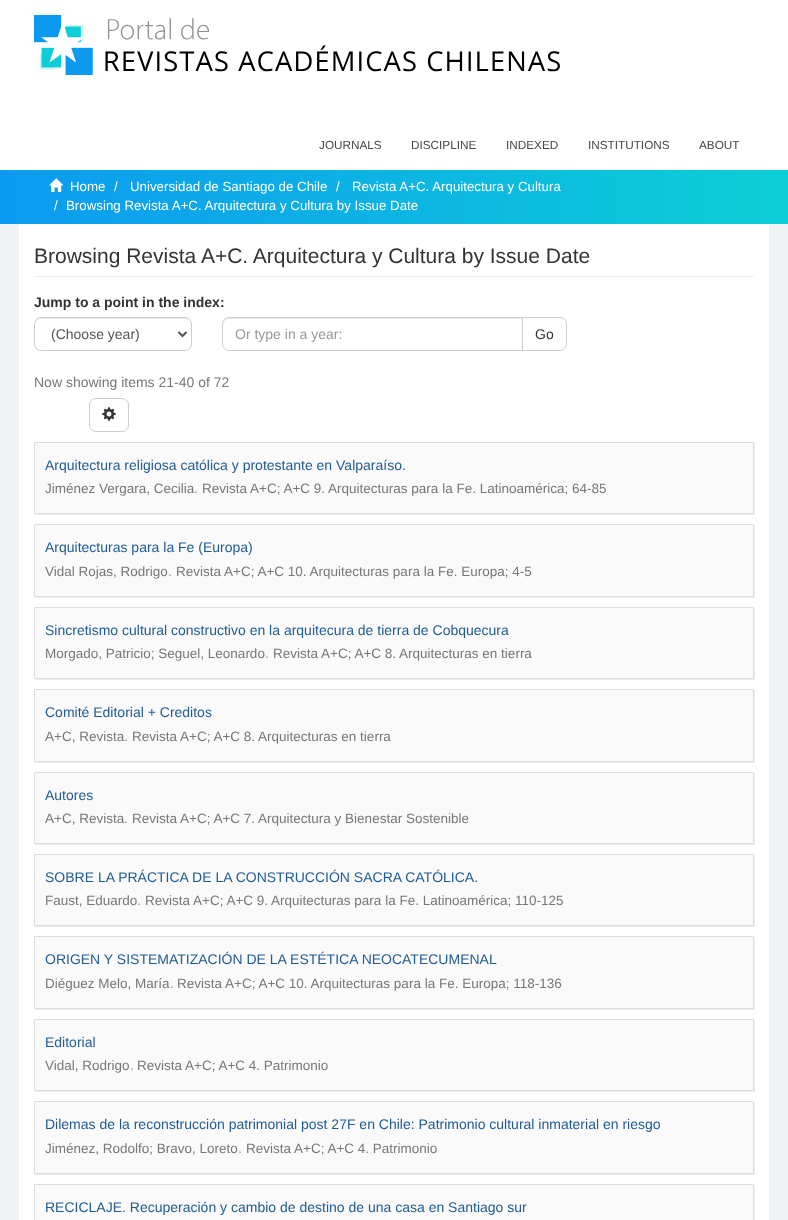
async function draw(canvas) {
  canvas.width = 788
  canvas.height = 1220
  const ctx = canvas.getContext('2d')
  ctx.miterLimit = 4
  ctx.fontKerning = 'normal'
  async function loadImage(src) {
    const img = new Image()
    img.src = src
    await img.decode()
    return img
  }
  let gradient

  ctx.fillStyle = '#f0f3f5'
  ctx.fillRect(0, 0, 788, 1220)
  ctx.fillStyle = '#fff'
  ctx.fillRect(0, 0, 788, 170)
  ctx.drawImage(await loadImage('image0.png'), 34, 15, 526, 60)
  ctx.font = '11.75px Liberation Sans'
  ctx.fillStyle = '#44474a'
  ctx.fillText('JOURNALS', 319, 149)
  ctx.fillText('DISCIPLINE', 411, 149)
  ctx.fillText('INDEXED', 506, 149)
  ctx.fillText('INSTITUTIONS', 588, 149)
  ctx.fillText('ABOUT', 699, 149)
  gradient = ctx.createLinearGradient(0, 197, 788, 197)
  gradient.addColorStop(0, '#0c9af0')
  gradient.addColorStop(1, '#0dced6')
  ctx.fillStyle = gradient
  ctx.fillRect(0, 170, 788, 54)
  ctx.drawImage(await loadImage('image1.png'), 49, 178, 15, 14)
  ctx.font = '13.3px Liberation Sans'
  ctx.fillStyle = '#fff'
  ctx.fillText('Home', 70, 191)
  ctx.fillText('/', 114, 191)
  ctx.fillText('Universidad de Santiago de Chile', 130, 191)
  ctx.fillText('/', 336, 191)
  ctx.fillText('Revista A+C. Arquitectura y Cultura', 352, 191)
  ctx.fillText('/', 54, 210)
  ctx.fillText('Browsing Revista A+C. Arquitectura y Cultura by Issue Date', 66, 210)
  ctx.fillRect(19, 224, 750, 996)
  ctx.fillStyle = '#eee'
  ctx.fillRect(34, 276, 720, 1)
  ctx.font = '21px Liberation Sans'
  ctx.fillStyle = '#333'
  ctx.fillText('Browsing Revista A+C. Arquitectura y Cultura by Issue Date', 34, 263)
  ctx.font = 'bold 14px Liberation Sans'
  ctx.fillText('Jump to a point in the index:', 34, 307)
  ctx.fillStyle = '#ececec'
  ctx.beginPath()
  ctx.moveTo(41, 319)
  ctx.lineTo(185, 319)
  ctx.bezierCurveTo(188, 319, 191, 322, 191, 325)
  ctx.lineTo(191, 324)
  ctx.bezierCurveTo(191, 321, 188, 318, 185, 318)
  ctx.lineTo(41, 318)
  ctx.bezierCurveTo(38, 318, 35, 321, 35, 324)
  ctx.lineTo(35, 325)
  ctx.bezierCurveTo(35, 322, 38, 319, 41, 319)
  ctx.closePath()
  ctx.fill()
  ctx.beginPath()
  ctx.roundRect(34.5, 317.5, 157, 33, 6.5)
  ctx.strokeStyle = '#ccc'
  ctx.stroke()
  ctx.beginPath()
  ctx.moveTo(178.5, 332)
  ctx.lineTo(182.5, 336)
  ctx.lineTo(186.5, 332)
  ctx.strokeStyle = '#555'
  ctx.lineWidth = 2
  ctx.stroke()
  ctx.font = '14px Liberation Sans'
  ctx.fillStyle = '#555'
  ctx.fillText('(Choose year)', 51, 339)
  ctx.beginPath()
  ctx.roundRect(522.5, 317.5, 44, 33, [0, 6.5, 6.5, 0])
  ctx.strokeStyle = '#ccc'
  ctx.lineWidth = 1
  ctx.stroke()
  ctx.fillStyle = '#fff'
  ctx.beginPath()
  ctx.roundRect(222, 317, 301, 34, [7, 0, 0, 7])
  ctx.fill()
  ctx.fillStyle = '#ececec'
  ctx.beginPath()
  ctx.moveTo(229, 319)
  ctx.lineTo(522, 319)
  ctx.lineTo(522, 318)
  ctx.lineTo(229, 318)
  ctx.bezierCurveTo(225, 318, 223, 321, 223, 325)
  ctx.bezierCurveTo(223, 322, 226, 319, 229, 319)
  ctx.closePath()
  ctx.fill()
  ctx.beginPath()
  ctx.roundRect(222.5, 317.5, 300, 33, [6.5, 0, 0, 6.5])
  ctx.stroke()
  ctx.fillStyle = '#999'
  ctx.fillText('Or type in a year:', 235, 339)
  ctx.fillStyle = '#333'
  ctx.fillText('Go', 535, 339)
  ctx.fillStyle = '#777'
  ctx.fillText('Now showing items 21-40 of 72', 34, 387)
  ctx.beginPath()
  ctx.roundRect(89.5, 398.5, 39, 33, 6.5)
  ctx.stroke()
  ctx.drawImage(await loadImage('image2.png'), 102, 407, 14, 14)
  ctx.fillStyle = '#aaaaaa36'
  ctx.filter = 'blur(0.5px)'
  ctx.beginPath()
  ctx.rect(35, 443, 720, 72)
  ctx.fill()
  ctx.filter = 'none'
  ctx.fillStyle = '#fafafa'
  ctx.beginPath()
  ctx.rect(34.5, 442.5, 719, 71)
  ctx.fill()
  ctx.strokeStyle = '#ddd'
  ctx.stroke()
  ctx.fillStyle = '#215b95'
  ctx.fillText('Arquitectura religiosa católica y protestante en Valparaíso.', 45, 470)
  ctx.font = '13.5px Liberation Sans'
  ctx.fillStyle = '#777'
  ctx.fillText('Jiménez Vergara, Cecilia', 45, 493)
  ctx.font = '14px Liberation Sans'
  ctx.fillStyle = '#999'
  ctx.fillText('.', 194, 493)
  ctx.font = '13.5px Liberation Sans'
  ctx.fillStyle = '#777'
  ctx.fillText('Revista A+C; A+C 9. Arquitecturas para la Fe. Latinoamérica; 64-85', 202, 493)
  ctx.fillStyle = '#aaaaaa36'
  ctx.filter = 'blur(0.5px)'
  ctx.beginPath()
  ctx.rect(35, 525, 720, 73)
  ctx.fill()
  ctx.filter = 'none'
  ctx.fillStyle = '#fafafa'
  ctx.beginPath()
  ctx.rect(34.5, 524.5, 719, 72)
  ctx.fill()
  ctx.stroke()
  ctx.font = '14px Liberation Sans'
  ctx.fillStyle = '#215b95'
  ctx.fillText('Arquitecturas para la Fe (Europa)', 45, 552)
  ctx.font = '13.5px Liberation Sans'
  ctx.fillStyle = '#777'
  ctx.fillText('Vidal Rojas, Rodrigo', 45, 576)
  ctx.font = '14px Liberation Sans'
  ctx.fillStyle = '#999'
  ctx.fillText('.', 168, 576)
  ctx.font = '13.5px Liberation Sans'
  ctx.fillStyle = '#777'
  ctx.fillText('Revista A+C; A+C 10. Arquitecturas para la Fe. Europa; 4-5', 176, 576)
  ctx.fillStyle = '#aaaaaa36'
  ctx.filter = 'blur(0.5px)'
  ctx.beginPath()
  ctx.rect(35, 608, 720, 72)
  ctx.fill()
  ctx.filter = 'none'
  ctx.fillStyle = '#fafafa'
  ctx.beginPath()
  ctx.rect(34.5, 607.5, 719, 71)
  ctx.fill()
  ctx.stroke()
  ctx.font = '14px Liberation Sans'
  ctx.fillStyle = '#215b95'
  ctx.fillText('Sincretismo cultural constructivo en la arquitecura de tierra de Cobquecura', 45, 635)
  ctx.font = '13.5px Liberation Sans'
  ctx.fillStyle = '#777'
  ctx.fillText('Morgado, Patricio; Seguel, Leonardo', 45, 658)
  ctx.font = '14px Liberation Sans'
  ctx.fillStyle = '#999'
  ctx.fillText('.', 265, 658)
  ctx.font = '13.5px Liberation Sans'
  ctx.fillStyle = '#777'
  ctx.fillText('Revista A+C; A+C 8. Arquitecturas en tierra', 273, 658)
  ctx.fillStyle = '#aaaaaa36'
  ctx.filter = 'blur(0.5px)'
  ctx.beginPath()
  ctx.rect(35, 690, 720, 73)
  ctx.fill()
  ctx.filter = 'none'
  ctx.fillStyle = '#fafafa'
  ctx.beginPath()
  ctx.rect(34.5, 689.5, 719, 72)
  ctx.fill()
  ctx.stroke()
  ctx.font = '14px Liberation Sans'
  ctx.fillStyle = '#215b95'
  ctx.fillText('Comité Editorial + Creditos', 45, 717)
  ctx.font = '13.5px Liberation Sans'
  ctx.fillStyle = '#777'
  ctx.fillText('A+C, Revista', 45, 741)
  ctx.font = '14px Liberation Sans'
  ctx.fillStyle = '#999'
  ctx.fillText('.', 124, 741)
  ctx.font = '13.5px Liberation Sans'
  ctx.fillStyle = '#777'
  ctx.fillText('Revista A+C; A+C 8. Arquitecturas en tierra', 132, 741)
  ctx.fillStyle = '#aaaaaa36'
  ctx.filter = 'blur(0.5px)'
  ctx.beginPath()
  ctx.rect(35, 773, 720, 72)
  ctx.fill()
  ctx.filter = 'none'
  ctx.fillStyle = '#fafafa'
  ctx.beginPath()
  ctx.rect(34.5, 772.5, 719, 71)
  ctx.fill()
  ctx.stroke()
  ctx.font = '14px Liberation Sans'
  ctx.fillStyle = '#215b95'
  ctx.fillText('Autores', 45, 800)
  ctx.font = '13.5px Liberation Sans'
  ctx.fillStyle = '#777'
  ctx.fillText('A+C, Revista', 45, 823)
  ctx.font = '14px Liberation Sans'
  ctx.fillStyle = '#999'
  ctx.fillText('.', 124, 823)
  ctx.font = '13.5px Liberation Sans'
  ctx.fillStyle = '#777'
  ctx.fillText('Revista A+C; A+C 7. Arquitectura y Bienestar Sostenible', 132, 823)
  ctx.fillStyle = '#aaaaaa36'
  ctx.filter = 'blur(0.5px)'
  ctx.beginPath()
  ctx.rect(35, 855, 720, 72)
  ctx.fill()
  ctx.filter = 'none'
  ctx.fillStyle = '#fafafa'
  ctx.beginPath()
  ctx.rect(34.5, 854.5, 719, 71)
  ctx.fill()
  ctx.stroke()
  ctx.font = '14px Liberation Sans'
  ctx.fillStyle = '#215b95'
  ctx.fillText('SOBRE LA PRÁCTICA DE LA CONSTRUCCIÓN SACRA CATÓLICA.', 45, 882)
  ctx.font = '13.5px Liberation Sans'
  ctx.fillStyle = '#777'
  ctx.fillText('Faust, Eduardo', 45, 905)
  ctx.font = '14px Liberation Sans'
  ctx.fillStyle = '#999'
  ctx.fillText('.', 137, 905)
  ctx.font = '13.5px Liberation Sans'
  ctx.fillStyle = '#777'
  ctx.fillText('Revista A+C; A+C 9. Arquitecturas para la Fe. Latinoamérica; 110-125', 145, 905)
  ctx.fillStyle = '#aaaaaa36'
  ctx.filter = 'blur(0.5px)'
  ctx.beginPath()
  ctx.rect(35, 937, 720, 73)
  ctx.fill()
  ctx.filter = 'none'
  ctx.fillStyle = '#fafafa'
  ctx.beginPath()
  ctx.rect(34.5, 936.5, 719, 72)
  ctx.fill()
  ctx.stroke()
  ctx.font = '14px Liberation Sans'
  ctx.fillStyle = '#215b95'
  ctx.fillText('ORIGEN Y SISTEMATIZACIÓN DE LA ESTÉTICA NEOCATECUMENAL', 45, 964)
  ctx.font = '13.5px Liberation Sans'
  ctx.fillStyle = '#777'
  ctx.fillText('Diéguez Melo, María', 45, 988)
  ctx.font = '14px Liberation Sans'
  ctx.fillStyle = '#999'
  ctx.fillText('.', 170, 988)
  ctx.font = '13.5px Liberation Sans'
  ctx.fillStyle = '#777'
  ctx.fillText('Revista A+C; A+C 10. Arquitecturas para la Fe. Europa; 118-136', 177, 988)
  ctx.fillStyle = '#aaaaaa36'
  ctx.filter = 'blur(0.5px)'
  ctx.beginPath()
  ctx.rect(35, 1020, 720, 72)
  ctx.fill()
  ctx.filter = 'none'
  ctx.fillStyle = '#fafafa'
  ctx.beginPath()
  ctx.rect(34.5, 1019.5, 719, 71)
  ctx.fill()
  ctx.stroke()
  ctx.font = '14px Liberation Sans'
  ctx.fillStyle = '#215b95'
  ctx.fillText('Editorial', 45, 1047)
  ctx.font = '13.5px Liberation Sans'
  ctx.fillStyle = '#777'
  ctx.fillText('Vidal, Rodrigo', 45, 1070)
  ctx.font = '14px Liberation Sans'
  ctx.fillStyle = '#999'
  ctx.fillText('.', 130, 1070)
  ctx.font = '13.5px Liberation Sans'
  ctx.fillStyle = '#777'
  ctx.fillText('Revista A+C; A+C 4. Patrimonio', 137, 1070)
  ctx.fillStyle = '#aaaaaa36'
  ctx.filter = 'blur(0.5px)'
  ctx.beginPath()
  ctx.rect(35, 1102, 720, 73)
  ctx.fill()
  ctx.filter = 'none'
  ctx.fillStyle = '#fafafa'
  ctx.beginPath()
  ctx.rect(34.5, 1101.5, 719, 72)
  ctx.fill()
  ctx.stroke()
  ctx.font = '14px Liberation Sans'
  ctx.fillStyle = '#215b95'
  ctx.fillText('Dilemas de la reconstrucción patrimonial post 27F en Chile: Patrimonio cultural inmaterial en riesgo', 45, 1129)
  ctx.font = '13.5px Liberation Sans'
  ctx.fillStyle = '#777'
  ctx.fillText('Jiménez, Rodolfo; Bravo, Loreto', 45, 1153)
  ctx.font = '14px Liberation Sans'
  ctx.fillStyle = '#999'
  ctx.fillText('.', 238, 1153)
  ctx.font = '13.5px Liberation Sans'
  ctx.fillStyle = '#777'
  ctx.fillText('Revista A+C; A+C 4. Patrimonio', 246, 1153)
  ctx.fillStyle = '#aaaaaa36'
  ctx.filter = 'blur(0.5px)'
  ctx.beginPath()
  ctx.rect(35, 1185, 720, 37)
  ctx.fill()
  ctx.filter = 'none'
  ctx.fillStyle = '#fafafa'
  ctx.beginPath()
  ctx.rect(34.5, 1184.5, 719, 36)
  ctx.fill()
  ctx.stroke()
  ctx.font = '14px Liberation Sans'
  ctx.fillStyle = '#215b95'
  ctx.fillText('RECICLAJE. Recuperación y cambio de destino de una casa en Santiago sur', 45, 1212)
}

draw(document.querySelector('canvas'))
